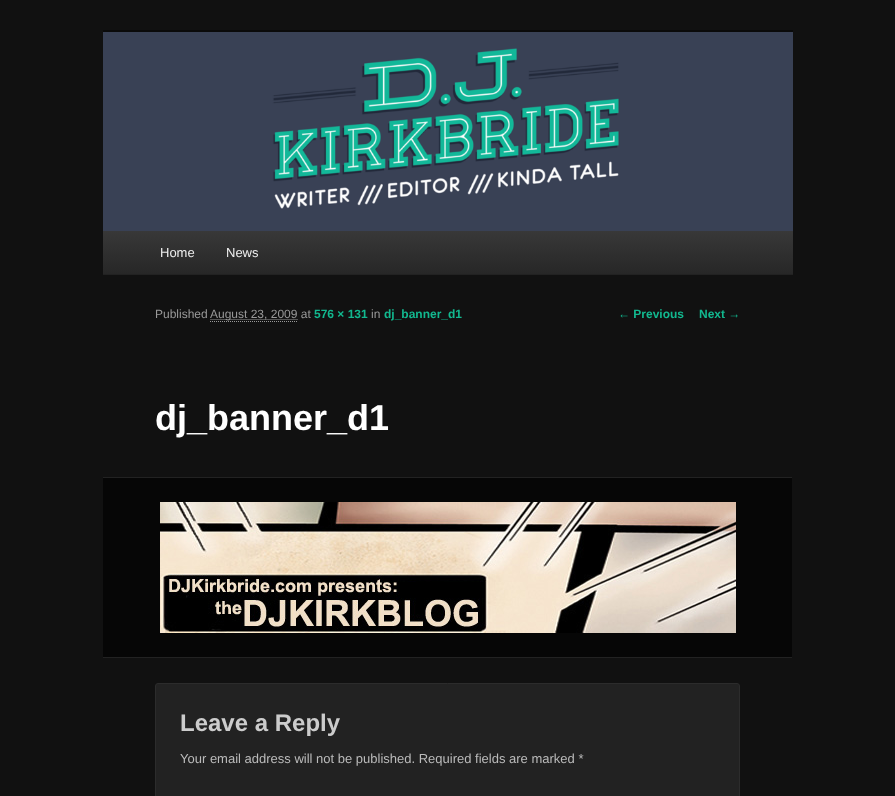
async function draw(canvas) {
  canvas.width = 895
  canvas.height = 796
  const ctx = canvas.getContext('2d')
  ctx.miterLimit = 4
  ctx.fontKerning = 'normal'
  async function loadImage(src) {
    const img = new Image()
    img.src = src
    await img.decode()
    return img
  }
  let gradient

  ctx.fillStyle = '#111'
  ctx.fillRect(0, 0, 895, 796)
  ctx.fillStyle = '#0a0a0a'
  ctx.fillRect(103, 30, 690, 2)
  ctx.drawImage(await loadImage('image0.png'), 103, 32, 690, 199)
  gradient = ctx.createLinearGradient(448, 231, 448, 274)
  gradient.addColorStop(0, '#383838')
  gradient.addColorStop(1, '#272727')
  ctx.fillStyle = gradient
  ctx.fillRect(103, 231, 690, 43)
  ctx.fillStyle = '#222'
  ctx.fillRect(103, 274, 690, 1)
  ctx.font = '13px Liberation Sans'
  ctx.fillStyle = '#eee'
  ctx.fillText('Home', 160, 257)
  ctx.fillText('News', 226, 257)
  ctx.font = '12px Liberation Sans'
  ctx.fillStyle = '#999'
  ctx.fillText('Published', 155, 318)
  ctx.beginPath()
  ctx.moveTo(210.5, 319.5)
  ctx.lineTo(297.5, 319.5)
  ctx.strokeStyle = '#999'
  ctx.setLineDash([1, 1])
  ctx.stroke()
  ctx.fillText('August 23, 2009 at', 210, 318)
  ctx.beginPath()
  ctx.moveTo(210, 321.5)
  ctx.lineTo(298, 321.5)
  ctx.stroke()
  ctx.font = 'bold 12px Liberation Sans'
  ctx.fillStyle = '#12b88f'
  ctx.fillText('576 × 131', 314, 318)
  ctx.font = '12px Liberation Sans'
  ctx.fillStyle = '#999'
  ctx.fillText('in', 371, 318)
  ctx.font = 'bold 12px Liberation Sans'
  ctx.fillStyle = '#12b88f'
  ctx.fillText('dj_banner_d1', 384, 318)
  ctx.font = 'bold 36px Liberation Sans'
  ctx.fillStyle = '#fff'
  ctx.fillText('dj_banner_d1', 155, 430)
  ctx.fillStyle = '#060606'
  ctx.fillRect(103, 478, 689, 179)
  ctx.fillStyle = '#222'
  ctx.fillRect(103, 477, 689, 1)
  ctx.fillRect(103, 657, 689, 1)
  ctx.drawImage(await loadImage('image1.png'), 160, 502, 576, 131)
  ctx.font = 'bold 12px Liberation Sans'
  ctx.fillStyle = '#12b88f'
  ctx.fillText('← Previous', 618, 318)
  ctx.fillText('Next →', 699, 318)
  ctx.fillStyle = '#222'
  ctx.beginPath()
  ctx.roundRect(155.5, 683.5, 584, 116, 2.5)
  ctx.fill()
  ctx.strokeStyle = '#2c2c2c'
  ctx.setLineDash([])
  ctx.stroke()
  ctx.font = 'bold 24px Liberation Sans'
  ctx.fillStyle = '#ccc'
  ctx.fillText('Leave a Reply', 180, 731)
  ctx.font = '13px Liberation Sans'
  ctx.fillStyle = '#bbb'
  ctx.fillText('Your email address will not be published. Required fields are marked *', 180, 763)
}

draw(document.querySelector('canvas'))
